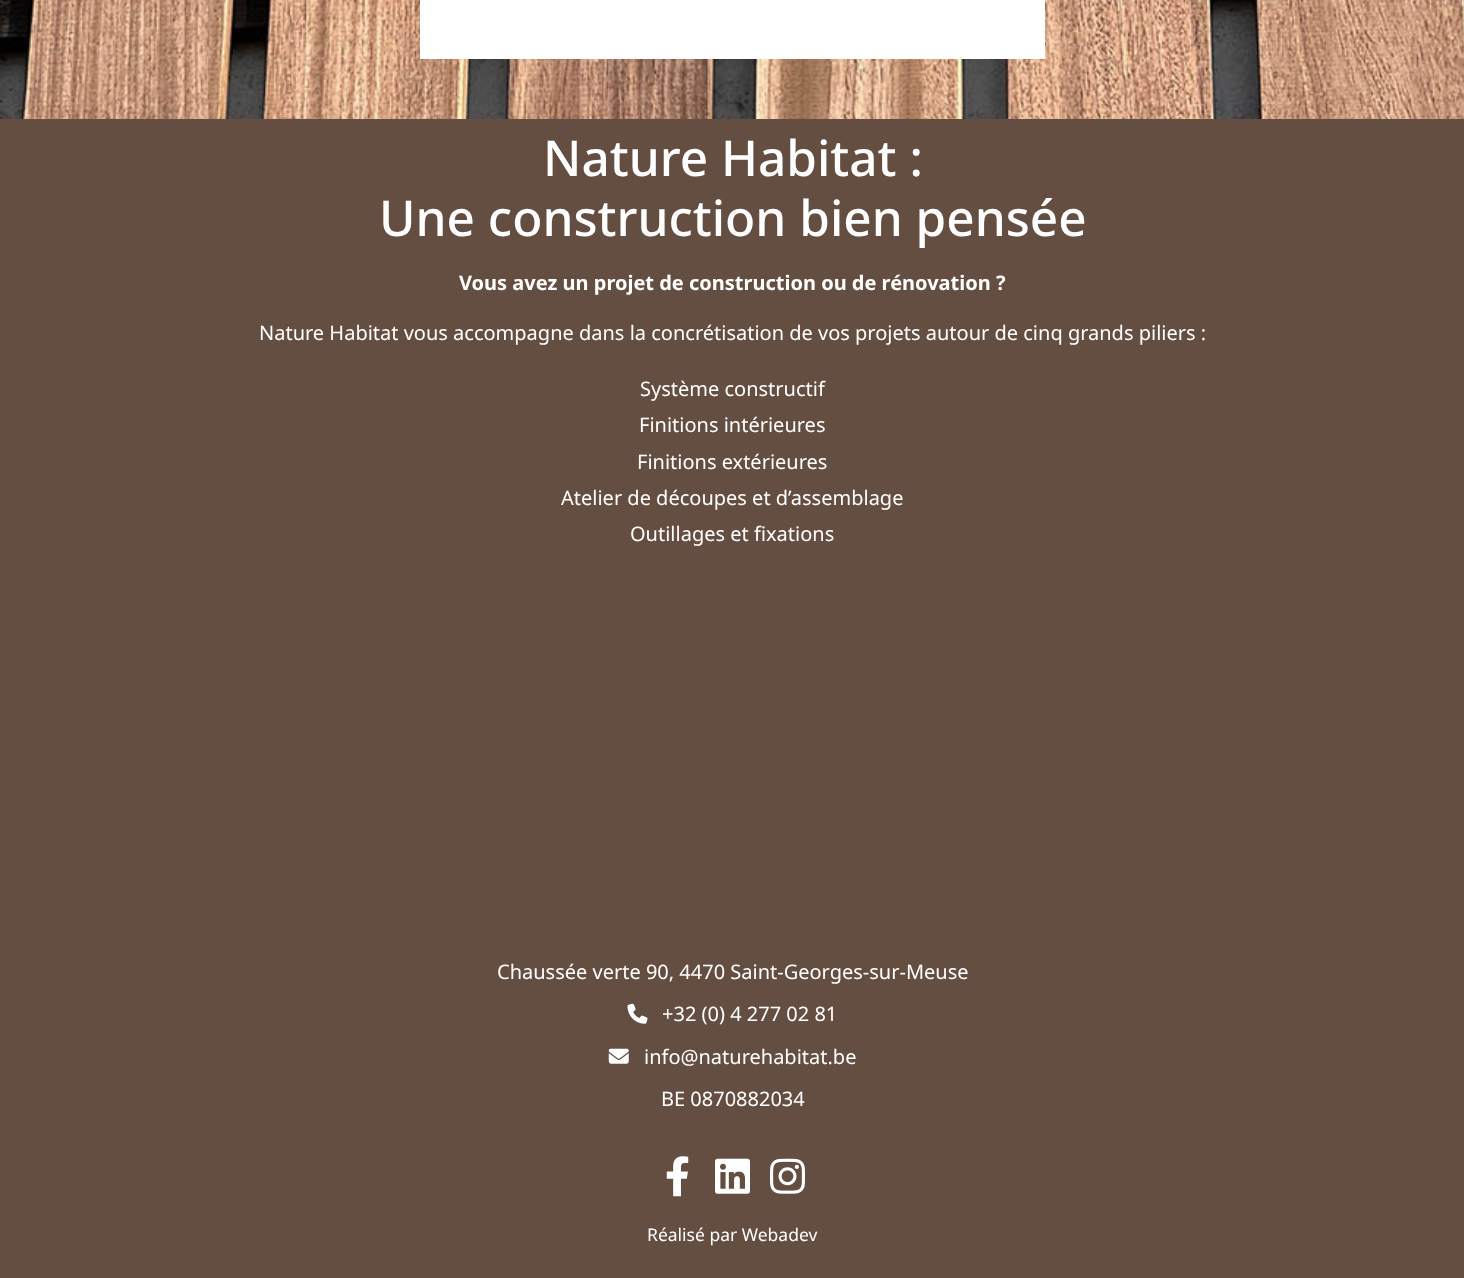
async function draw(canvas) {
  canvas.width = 1464
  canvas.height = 1278
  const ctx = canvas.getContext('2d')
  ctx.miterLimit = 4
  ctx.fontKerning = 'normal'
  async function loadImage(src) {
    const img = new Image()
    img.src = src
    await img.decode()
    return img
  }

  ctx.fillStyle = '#fff'
  ctx.fillRect(0, 0, 1464, 1278)
  ctx.drawImage(await loadImage('image0.png'), 0, 0, 1464, 119)
  ctx.fillRect(420, 0, 625, 59)
  ctx.fillStyle = '#644e41'
  ctx.fillRect(0, 119, 1464, 1159)
  ctx.font = '500 49.5px Noto Sans'
  ctx.fillStyle = '#fff'
  ctx.fillText('Nature Habitat :', 543, 176)
  ctx.fillText('Une construction bien pensée', 379, 236)
  ctx.font = 'bold 20px Noto Sans'
  ctx.fillText('Vous avez un projet de construction ou de rénovation ?', 459, 290)
  ctx.font = '20px Noto Sans'
  ctx.fillText('Nature Habitat vous accompagne dans la concrétisation de vos projets autour de cinq grands piliers :', 259, 340)
  ctx.fillText('Système constructif', 640, 396)
  ctx.fillText('Finitions intérieures', 639, 432)
  ctx.fillText('Finitions extérieures', 637, 469)
  ctx.fillText('Atelier de découpes et d’assemblage', 561, 505)
  ctx.fillText('Outillages et fixations', 630, 541)
  ctx.fillText('Chaussée verte 90, 4470 Saint-Georges-sur-Meuse', 497, 979)
  ctx.drawImage(await loadImage('image1.png'), 627, 1003, 21, 21)
  ctx.fillText('+32 (0) 4 277 02 81', 662, 1021)
  ctx.drawImage(await loadImage('image2.png'), 608, 1048, 21, 16)
  ctx.fillText('info@naturehabitat.be', 644, 1064)
  ctx.fillText('BE 0870882034', 661, 1106)
  ctx.drawImage(await loadImage('image3.png'), 666, 1156, 23, 41)
  ctx.drawImage(await loadImage('image4.png'), 715, 1158, 35, 36)
  ctx.drawImage(await loadImage('image5.png'), 770, 1158, 35, 36)
  ctx.font = '17.5px Noto Sans'
  ctx.fillText('Réalisé par Webadev', 647, 1241)
}

draw(document.querySelector('canvas'))
